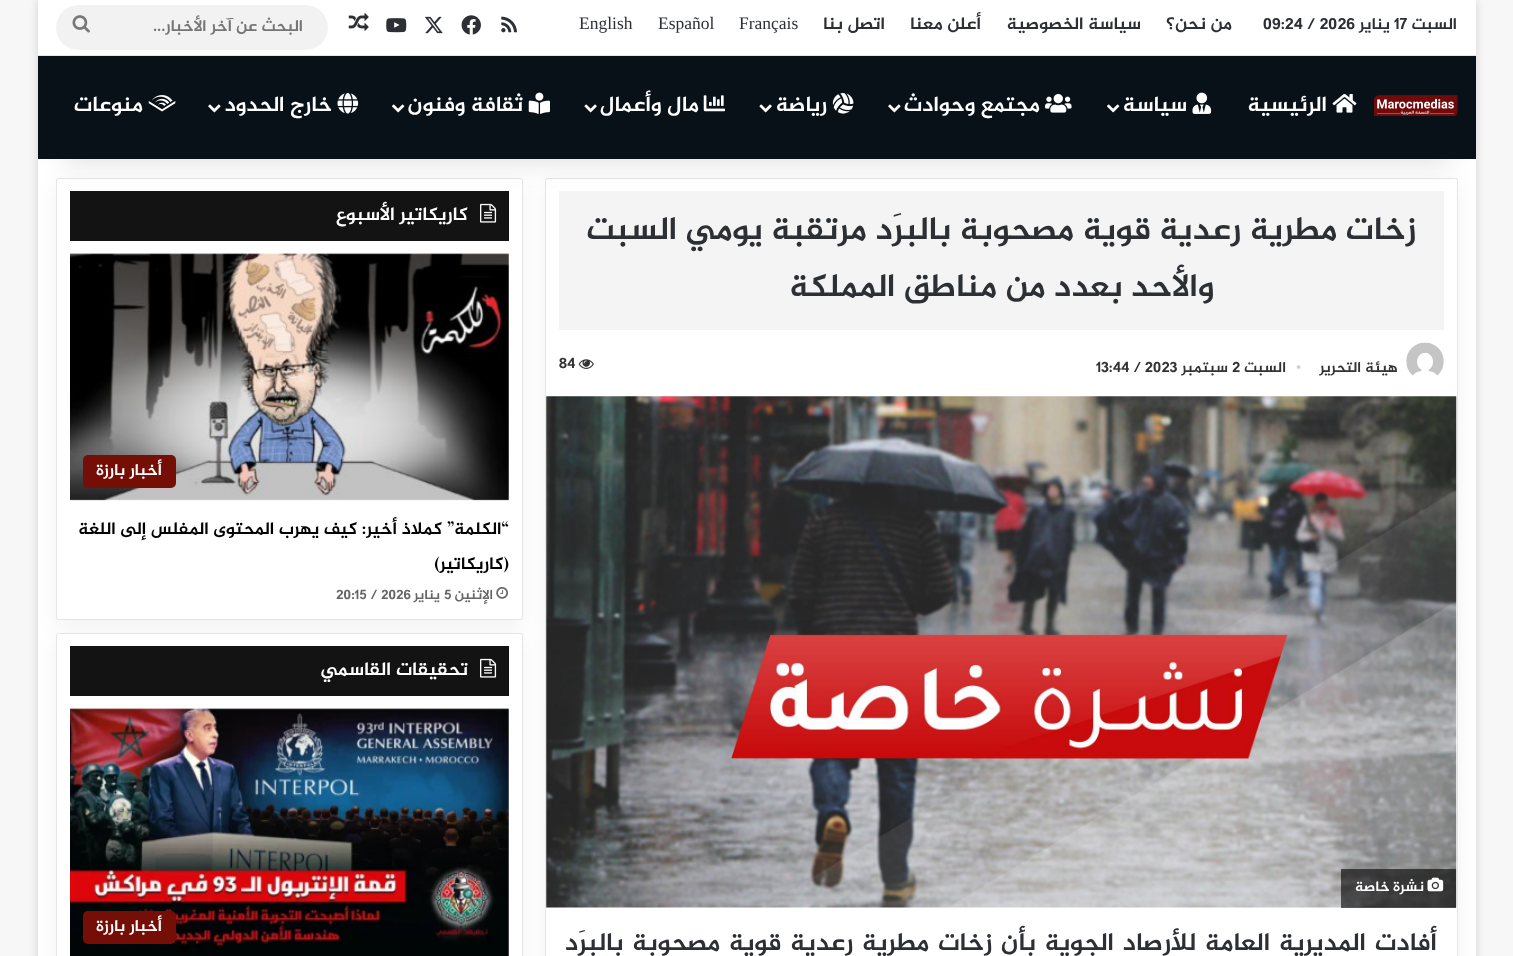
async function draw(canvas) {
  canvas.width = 1513
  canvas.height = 956
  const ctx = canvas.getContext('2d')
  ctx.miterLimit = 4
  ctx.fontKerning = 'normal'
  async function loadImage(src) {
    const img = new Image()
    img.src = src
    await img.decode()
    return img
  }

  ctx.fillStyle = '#f7f7f7'
  ctx.fillRect(0, 0, 1513, 956)
  ctx.fillStyle = '#ababab80'
  ctx.filter = 'blur(4.5px)'
  ctx.beginPath()
  ctx.rect(38, 1, 1438, 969)
  ctx.fill()
  ctx.filter = 'none'
  ctx.fillStyle = '#fff'
  ctx.fillRect(38, 159, 1438, 797)
  ctx.fillStyle = '#0000000d'
  ctx.filter = 'blur(9.5px)'
  ctx.beginPath()
  ctx.roundRect(545, 184, 913, 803, 2.5)
  ctx.fill()
  ctx.filter = 'none'
  ctx.fillStyle = '#fff'
  ctx.beginPath()
  ctx.roundRect(545.5, 178.5, 912, 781, 2)
  ctx.fill()
  ctx.strokeStyle = '#e5e5e5'
  ctx.stroke()
  ctx.fillStyle = '#f4f4f4'
  ctx.fillRect(559, 191, 885, 139)
  ctx.drawImage(await loadImage('image20.png'), 546, 396, 911, 512)
  ctx.fillStyle = '#0000000d'
  ctx.filter = 'blur(9.5px)'
  ctx.beginPath()
  ctx.roundRect(56, 184, 467, 442, 2.5)
  ctx.fill()
  ctx.filter = 'none'
  ctx.fillStyle = '#fff'
  ctx.beginPath()
  ctx.roundRect(56.5, 178.5, 466, 441, 2)
  ctx.fill()
  ctx.stroke()
  ctx.fillStyle = '#131313'
  ctx.fillRect(70, 191, 439, 50)
  ctx.drawImage(await loadImage('image22.png'), 480, 203, 17, 20)
  ctx.fillStyle = '#0000001a'
  ctx.filter = 'blur(12.5px)'
  ctx.beginPath()
  ctx.rect(63, 56, 1388, 109)
  ctx.fill()
  ctx.filter = 'none'
  ctx.fillStyle = '#fff'
  ctx.fillRect(38, 0, 1438, 55)
  ctx.fillStyle = '#e6e6e6'
  ctx.fillRect(38, 55, 1438, 1)
  ctx.direction = 'rtl'
  ctx.font = 'bold 16.25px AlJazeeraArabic'
  ctx.fillStyle = '#2c2f34'
  ctx.fillText('السبت', 1457, 29)
  ctx.direction = 'ltr'
  ctx.fillText('17', 1394, 29)
  ctx.direction = 'rtl'
  ctx.fillText('يناير', 1390, 29)
  ctx.direction = 'ltr'
  ctx.fillText('09:24 / 2026', 1263, 29)
  ctx.direction = 'rtl'
  ctx.font = 'bold 17.5px AlJazeeraArabic'
  ctx.fillText('من نحن؟', 1232, 29)
  ctx.fillText('سياسة الخصوصية', 1141, 29)
  ctx.fillText('أعلن معنا', 981, 29)
  ctx.fillText('اتصل بنا', 885, 29)
  ctx.direction = 'ltr'
  ctx.font = '17.5px Liberation Serif'
  ctx.fillText('Français', 739, 29)
  ctx.fillText('Español', 658, 29)
  ctx.fillText('English', 579, 29)
  ctx.drawImage(await loadImage('image0.png'), 501, 16, 16, 17)
  ctx.drawImage(await loadImage('image1.png'), 461, 15, 20, 20)
  ctx.drawImage(await loadImage('image2.png'), 425, 16, 18, 18)
  ctx.drawImage(await loadImage('image3.png'), 386, 18, 21, 15)
  ctx.drawImage(await loadImage('image4.png'), 348, 13, 21, 18)
  ctx.fillStyle = '#f2f2f2'
  ctx.beginPath()
  ctx.roundRect(56, 5, 272, 45, 22.5)
  ctx.fill()
  ctx.direction = 'rtl'
  ctx.font = 'bold 16.25px AlJazeeraArabic'
  ctx.fillStyle = '#757575'
  ctx.fillText('البحث عن آخر الأخبار...', 303, 31)
  ctx.drawImage(await loadImage('image5.png'), 72, 15, 18, 18)
  ctx.fillStyle = '#081018'
  ctx.fillRect(38, 56, 1438, 103)
  ctx.drawImage(await loadImage('image6.png'), 1374, 95, 84, 21)
  ctx.drawImage(await loadImage('image7.png'), 1332, 94, 25, 19)
  ctx.font = 'bold 21.25px AlJazeeraArabic'
  ctx.fillStyle = '#fff'
  ctx.fillText('الرئيسية', 1327, 111)
  ctx.drawImage(await loadImage('image8.png'), 1192, 92, 20, 22)
  ctx.fillText('سياسة', 1187, 111)
  ctx.drawImage(await loadImage('image9.png'), 1107, 104, 13, 9)
  ctx.drawImage(await loadImage('image10.png'), 1045, 94, 27, 19)
  ctx.fillText('مجتمع وحوادث', 1040, 111)
  ctx.drawImage(await loadImage('image11.png'), 888, 104, 13, 9)
  ctx.drawImage(await loadImage('image12.png'), 832, 93, 22, 21)
  ctx.fillText('رياضة', 827, 111)
  ctx.drawImage(await loadImage('image13.png'), 759, 104, 13, 9)
  ctx.drawImage(await loadImage('image14.png'), 703, 95, 22, 17)
  ctx.fillText('مال وأعمال', 699, 111)
  ctx.drawImage(await loadImage('image13.png'), 584, 104, 13, 9)
  ctx.drawImage(await loadImage('image15.png'), 528, 92, 22, 22)
  ctx.fillText('ثقافة وفنون', 523, 111)
  ctx.drawImage(await loadImage('image9.png'), 392, 104, 13, 9)
  ctx.drawImage(await loadImage('image16.png'), 337, 93, 22, 21)
  ctx.fillText('خارج الحدود', 332, 111)
  ctx.drawImage(await loadImage('image11.png'), 208, 104, 13, 9)
  ctx.drawImage(await loadImage('image17.png'), 148, 95, 28, 17)
  ctx.fillText('منوعات', 143, 111)
  ctx.font = 'bold 32.5px AlJazeeraArabic'
  ctx.fillStyle = '#2c2f34'
  ctx.fillText('زخات مطرية رعدية قوية مصحوبة بالبرَد مرتقبة يومي السبت', 1416, 239)
  ctx.fillText('والأحد بعدد من مناطق المملكة', 1214, 296)
  ctx.drawImage(await loadImage('image18.png'), 1406, 342, 38, 34)
  ctx.font = 'bold 15px AlJazeeraArabic'
  ctx.fillStyle = '#333'
  ctx.fillText('هيئة التحرير', 1398, 372)
  ctx.direction = 'ltr'
  ctx.font = '15px Liberation Serif'
  ctx.fillStyle = '#ccc'
  ctx.fillText('•', 1296, 372)
  ctx.direction = 'rtl'
  ctx.font = 'bold 15px AlJazeeraArabic'
  ctx.fillStyle = '#333'
  ctx.fillText('السبت', 1286, 372)
  ctx.direction = 'ltr'
  ctx.fillText('2', 1232, 372)
  ctx.direction = 'rtl'
  ctx.fillText('سبتمبر', 1228, 372)
  ctx.direction = 'ltr'
  ctx.fillText('13:44 / 2023', 1096, 372)
  ctx.drawImage(await loadImage('image19.png'), 578, 359, 16, 10)
  ctx.fillText('84', 559, 368)
  ctx.fillStyle = '#00000099'
  ctx.fillRect(1341, 869, 115, 39)
  ctx.drawImage(await loadImage('image21.png'), 1427, 877, 17, 15)
  ctx.direction = 'rtl'
  ctx.font = 'bold 14.5px AlJazeeraArabic'
  ctx.fillStyle = '#fff'
  ctx.fillText('نشرة خاصة', 1424, 891)
  ctx.wordSpacing = '2.25px'
  ctx.font = 'bold 25px AlJazeeraArabic'
  ctx.fillStyle = '#2c2f34'
  ctx.fillText('أفادت المديرية العامة للأرصاد الجوية بأن زخات مطرية رعدية قوية مصحوبة بالبرَد', 1437, 950)
  ctx.wordSpacing = '0px'
  ctx.font = 'bold 18.75px AlJazeeraArabic'
  ctx.fillStyle = '#fff'
  ctx.fillText('كاريكاتير الأسبوع', 468, 220)
  ctx.drawImage(await loadImage('image23.png'), 70, 253, 439, 248)
  ctx.fillStyle = '#740e06'
  ctx.beginPath()
  ctx.roundRect(83, 455, 93, 33, 5)
  ctx.fill()
  ctx.font = 'bold 16.25px AlJazeeraArabic'
  ctx.fillStyle = '#fff'
  ctx.fillText('أخبار بارزة', 162, 475)
  ctx.font = 'bold 17.5px AlJazeeraArabic'
  ctx.fillStyle = '#000'
  ctx.fillText('“الكلمة” كملاذ أخير: كيف يهرب المحتوى المفلس إلى اللغة', 509, 534)
  ctx.fillText('(كاريكاتير)', 509, 569)
  ctx.drawImage(await loadImage('image24.png'), 496, 587, 12, 12)
  ctx.font = 'bold 13.75px AlJazeeraArabic'
  ctx.fillStyle = '#666'
  ctx.fillText('الإثنين', 493, 599)
  ctx.direction = 'ltr'
  ctx.fillText('5', 444, 599)
  ctx.direction = 'rtl'
  ctx.fillText('يناير', 440, 599)
  ctx.direction = 'ltr'
  ctx.fillText('20:15 / 2026', 336, 599)
  ctx.fillStyle = '#0000000d'
  ctx.filter = 'blur(9.5px)'
  ctx.beginPath()
  ctx.roundRect(56, 639, 467, 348, 2.5)
  ctx.fill()
  ctx.filter = 'none'
  ctx.fillStyle = '#fff'
  ctx.beginPath()
  ctx.roundRect(56.5, 633.5, 466, 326, 2)
  ctx.fill()
  ctx.stroke()
  ctx.fillStyle = '#131313'
  ctx.fillRect(70, 646, 439, 50)
  ctx.drawImage(await loadImage('image22.png'), 480, 658, 17, 20)
  ctx.direction = 'rtl'
  ctx.font = 'bold 18.75px AlJazeeraArabic'
  ctx.fillStyle = '#fff'
  ctx.fillText('تحقيقات القاسمي', 468, 675)
  ctx.drawImage(await loadImage('image25.png'), 70, 708, 439, 248)
  ctx.fillStyle = '#740e06'
  ctx.beginPath()
  ctx.roundRect(83, 911, 93, 33, 5)
  ctx.fill()
  ctx.font = 'bold 16.25px AlJazeeraArabic'
  ctx.fillStyle = '#fff'
  ctx.fillText('أخبار بارزة', 162, 931)
}

draw(document.querySelector('canvas'))
